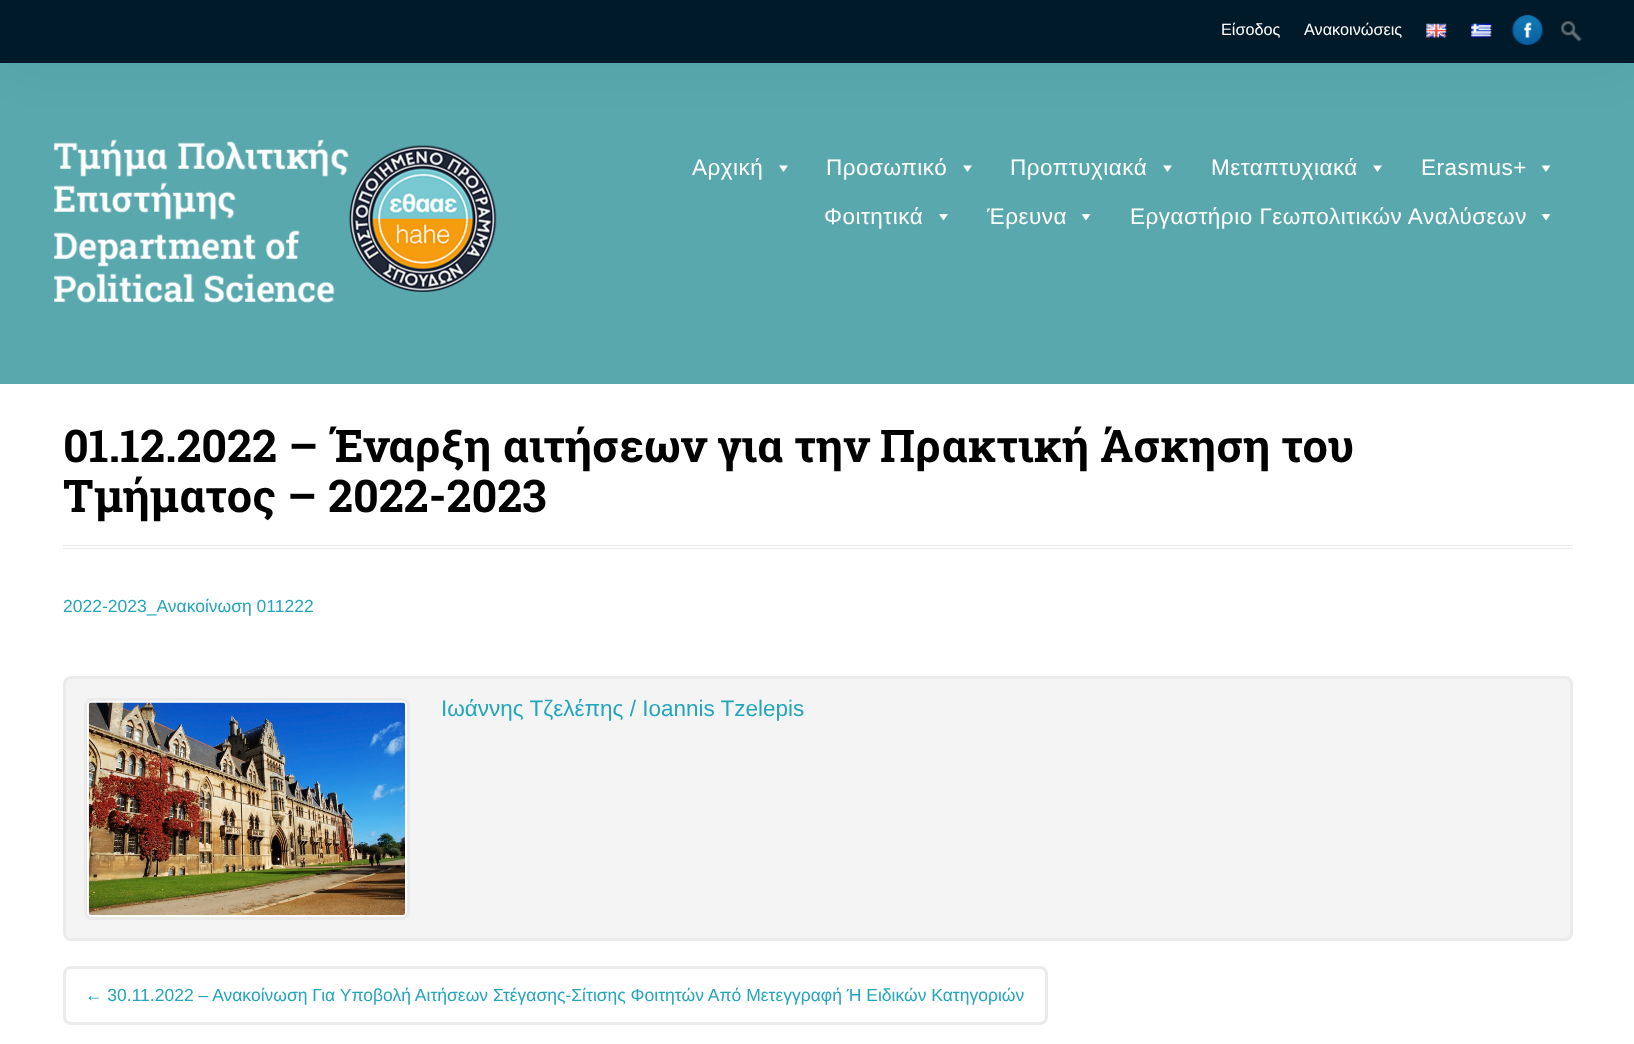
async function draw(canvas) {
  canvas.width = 1634
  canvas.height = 1044
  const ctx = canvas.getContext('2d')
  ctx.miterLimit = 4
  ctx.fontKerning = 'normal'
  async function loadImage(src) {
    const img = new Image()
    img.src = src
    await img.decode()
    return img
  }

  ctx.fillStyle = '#fff'
  ctx.fillRect(0, 0, 1634, 1044)
  ctx.fillStyle = '#0000001a'
  ctx.filter = 'blur(31px)'
  ctx.beginPath()
  ctx.rect(0, 0, 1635, 63)
  ctx.fill()
  ctx.filter = 'none'
  ctx.fillStyle = '#011a29'
  ctx.fillRect(0, 0, 1634, 63)
  ctx.font = '16.25px Liberation Sans'
  ctx.fillStyle = '#fff'
  ctx.fillText('Είσοδος', 1221, 35)
  ctx.fillText('Ανακοινώσεις', 1304, 35)
  ctx.drawImage(await loadImage('image0.png'), 1426, 23, 21, 15)
  ctx.drawImage(await loadImage('image1.png'), 1471, 23, 21, 15)
  ctx.drawImage(await loadImage('image2.png'), 1512, 15, 31, 30)
  ctx.drawImage(await loadImage('image3.png'), 1561, 21, 21, 21)
  ctx.fillStyle = '#007982a6'
  ctx.fillRect(0, 63, 1634, 321)
  ctx.drawImage(await loadImage('image4.png'), 54, 139, 443, 164)
  ctx.letterSpacing = '0.5px'
  ctx.font = '22.5px Liberation Sans'
  ctx.fillStyle = '#fff'
  ctx.fillText('Αρχική', 692, 175)
  ctx.beginPath()
  ctx.moveTo(788, 165.5)
  ctx.lineTo(783.5, 172)
  ctx.lineTo(779, 165.5)
  ctx.closePath()
  ctx.fill()
  ctx.fillText('Προσωπικό', 826, 175)
  ctx.beginPath()
  ctx.moveTo(972, 165.5)
  ctx.lineTo(967.5, 172)
  ctx.lineTo(963, 165.5)
  ctx.closePath()
  ctx.fill()
  ctx.fillText('Προπτυχιακά', 1010, 175)
  ctx.beginPath()
  ctx.moveTo(1172, 165.5)
  ctx.lineTo(1167.5, 172)
  ctx.lineTo(1163, 165.5)
  ctx.closePath()
  ctx.fill()
  ctx.fillText('Μεταπτυχιακά', 1211, 175)
  ctx.beginPath()
  ctx.moveTo(1382, 165.5)
  ctx.lineTo(1377.5, 172)
  ctx.lineTo(1373, 165.5)
  ctx.closePath()
  ctx.fill()
  ctx.fillText('Erasmus+', 1421, 175)
  ctx.beginPath()
  ctx.moveTo(1550.5, 165.5)
  ctx.lineTo(1546, 172)
  ctx.lineTo(1541.5, 165.5)
  ctx.closePath()
  ctx.fill()
  ctx.fillText('Φοιτητικά', 824, 224)
  ctx.beginPath()
  ctx.moveTo(948, 214)
  ctx.lineTo(943.5, 220.5)
  ctx.lineTo(939, 214)
  ctx.closePath()
  ctx.fill()
  ctx.fillText('Έρευνα', 987, 224)
  ctx.beginPath()
  ctx.moveTo(1090.5, 214)
  ctx.lineTo(1086, 220.5)
  ctx.lineTo(1081.5, 214)
  ctx.closePath()
  ctx.fill()
  ctx.fillText('Εργαστήριο Γεωπολιτικών Αναλύσεων', 1130, 224)
  ctx.beginPath()
  ctx.moveTo(1550.5, 214)
  ctx.lineTo(1546, 220.5)
  ctx.lineTo(1541.5, 214)
  ctx.closePath()
  ctx.fill()
  ctx.letterSpacing = '0px'
  ctx.font = 'bold 45px Roboto Slab'
  ctx.fillStyle = '#000'
  ctx.fillText('01.12.2022 – Έναρξη αιτήσεων για την Πρακτική Άσκηση του', 63, 462)
  ctx.fillText('Τμήματος – 2022-2023', 63, 512)
  ctx.fillStyle = '#ebebeb'
  ctx.fillRect(63, 545, 1510, 1)
  ctx.fillRect(63, 548, 1510, 1)
  ctx.font = '17.5px Liberation Sans'
  ctx.fillStyle = '#23a5bc'
  ctx.fillText('2022-2023_Ανακοίνωση 011222', 63, 612)
  ctx.fillStyle = '#f4f4f4'
  ctx.beginPath()
  ctx.roundRect(64.5, 677.5, 1507, 262, 6.5)
  ctx.fill()
  ctx.strokeStyle = '#ebebeb'
  ctx.lineWidth = 3
  ctx.stroke()
  ctx.fillStyle = '#fff'
  ctx.beginPath()
  ctx.roundRect(85.5, 699.5, 323, 219, 6.5)
  ctx.fill()
  ctx.stroke()
  ctx.drawImage(await loadImage('image5.png'), 88, 702, 317, 213)
  ctx.font = '22.5px Liberation Sans'
  ctx.fillStyle = '#23a5bc'
  ctx.fillText('Ιωάννης Τζελέπης / Ioannis Tzelepis', 441, 716)
  ctx.beginPath()
  ctx.roundRect(64.5, 967.5, 982, 56, 6.5)
  ctx.stroke()
  ctx.font = '17.5px Liberation Sans'
  ctx.fillText('← 30.11.2022 – Ανακοίνωση Για Υποβολή Αιτήσεων Στέγασης-Σίτισης Φοιτητών Από Μετεγγραφή Ή Ειδικών Κατηγοριών', 85, 1001)
}

draw(document.querySelector('canvas'))
